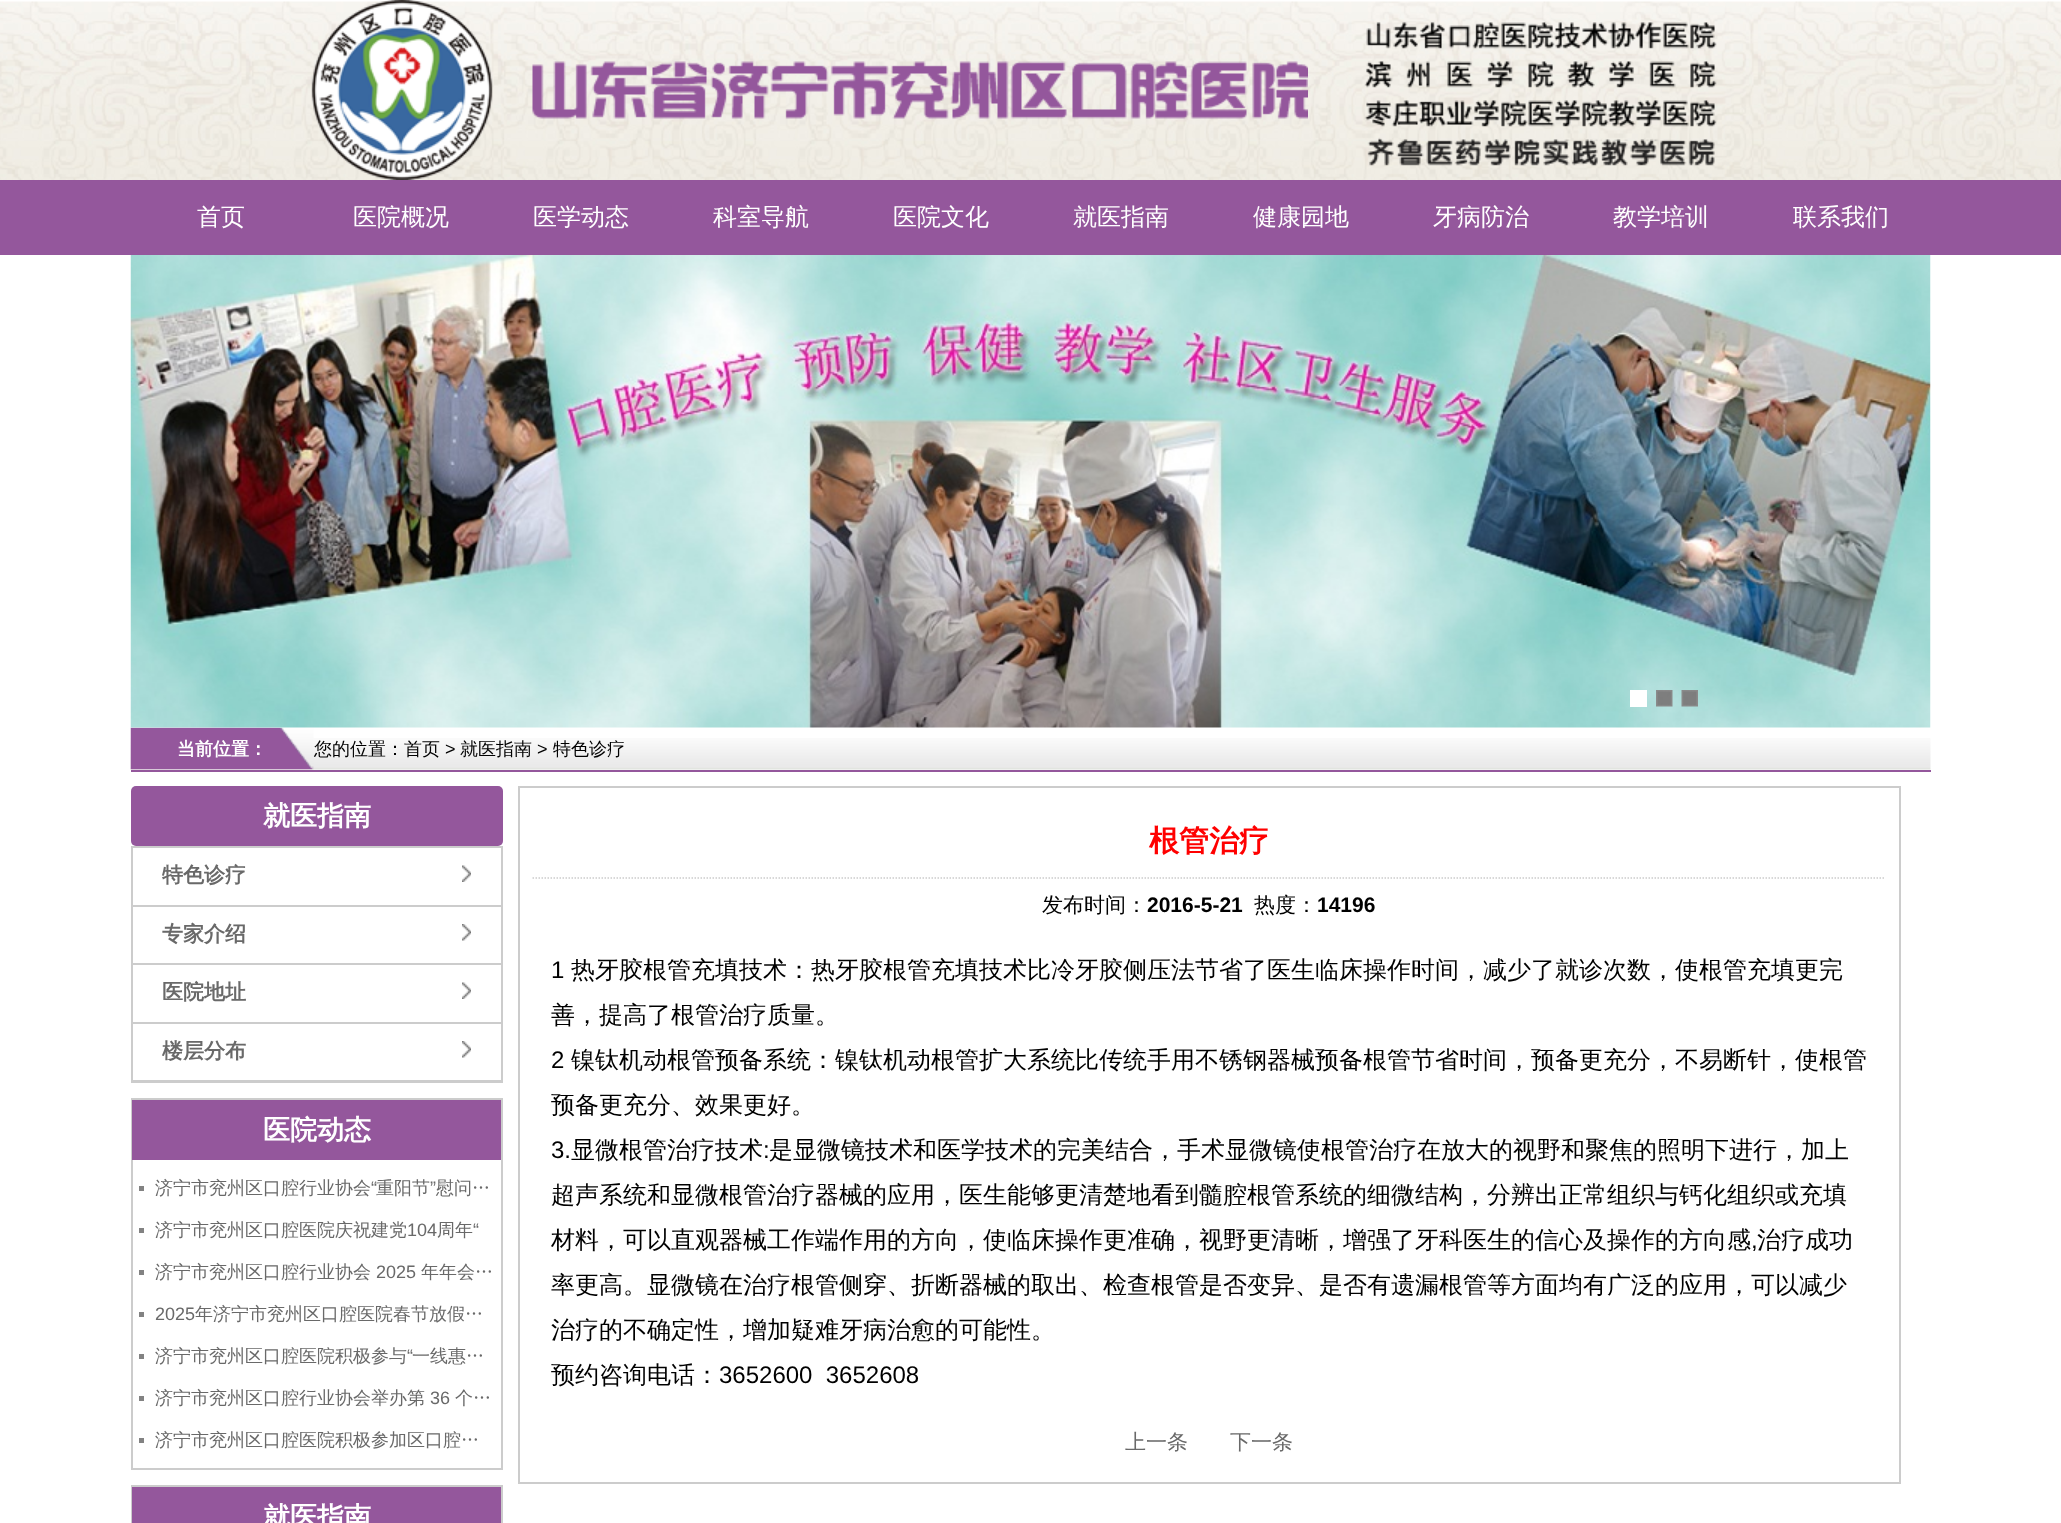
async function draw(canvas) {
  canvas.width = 2061
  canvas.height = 1523
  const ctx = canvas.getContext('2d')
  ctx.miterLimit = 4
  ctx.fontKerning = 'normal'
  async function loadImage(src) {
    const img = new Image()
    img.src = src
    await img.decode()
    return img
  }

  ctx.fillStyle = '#fff'
  ctx.fillRect(0, 0, 2061, 1523)
  ctx.drawImage(await loadImage('image0.png'), 0, 1, 2061, 179)
  ctx.drawImage(await loadImage('image1.png'), 311, 0, 997, 180)
  ctx.drawImage(await loadImage('image2.png'), 1364, 22, 353, 144)
  ctx.fillStyle = '#94579c'
  ctx.fillRect(0, 180, 2061, 75)
  ctx.font = '500 24px WenQuanYi Zen Hei'
  ctx.fillStyle = '#fff'
  ctx.fillText('首页', 197, 225)
  ctx.fillText('医院概况', 353, 225)
  ctx.fillText('医学动态', 533, 225)
  ctx.fillText('科室导航', 713, 225)
  ctx.fillText('医院文化', 893, 225)
  ctx.fillText('就医指南', 1073, 225)
  ctx.fillText('健康园地', 1253, 225)
  ctx.fillText('牙病防治', 1433, 225)
  ctx.fillText('教学培训', 1613, 225)
  ctx.fillText('联系我们', 1793, 225)
  ctx.drawImage(await loadImage('image6.png'), 130, 738, 1801, 32)
  ctx.drawImage(await loadImage('image7.png'), 130, 727, 184, 43)
  ctx.drawImage(await loadImage('image3.png'), 130, 255, 1801, 473)
  ctx.fillRect(1630, 690, 17, 17)
  ctx.drawImage(await loadImage('image4.png'), 1656, 690, 17, 17)
  ctx.drawImage(await loadImage('image5.png'), 1681, 690, 17, 17)
  ctx.fillStyle = '#94579c'
  ctx.fillRect(131, 770, 1800, 2)
  ctx.font = 'bold 18px WenQuanYi Zen Hei'
  ctx.fillStyle = '#fff'
  ctx.fillText('当前位置：', 177, 755)
  ctx.font = '500 18px WenQuanYi Zen Hei'
  ctx.fillStyle = '#000'
  ctx.fillText('您的位置：首页', 314, 755)
  ctx.font = '18px Liberation Sans'
  ctx.fillText('>', 445, 755)
  ctx.font = '500 18px WenQuanYi Zen Hei'
  ctx.fillText('就医指南', 460, 755)
  ctx.font = '18px Liberation Sans'
  ctx.fillText('>', 537, 755)
  ctx.font = '500 18px WenQuanYi Zen Hei'
  ctx.fillText('特色诊疗', 553, 755)
  ctx.fillStyle = '#94579c'
  ctx.beginPath()
  ctx.roundRect(131, 786, 372, 60, 5)
  ctx.fill()
  ctx.font = 'bold 27px WenQuanYi Zen Hei'
  ctx.fillStyle = '#fff'
  ctx.fillText('就医指南', 263, 825)
  ctx.strokeStyle = '#ccc'
  ctx.lineWidth = 2
  ctx.strokeRect(132, 847, 370, 235)
  ctx.fillStyle = '#ccc'
  ctx.fillRect(132, 905, 369, 2)
  ctx.font = 'bold 21px WenQuanYi Zen Hei'
  ctx.fillStyle = '#696969'
  ctx.fillText('特色诊疗', 162, 882)
  ctx.drawImage(await loadImage('image8.png'), 462, 865, 9, 17)
  ctx.fillStyle = '#ccc'
  ctx.fillRect(132, 963, 369, 2)
  ctx.fillStyle = '#696969'
  ctx.fillText('专家介绍', 162, 941)
  ctx.drawImage(await loadImage('image9.png'), 462, 924, 9, 17)
  ctx.fillStyle = '#ccc'
  ctx.fillRect(132, 1022, 369, 2)
  ctx.fillStyle = '#696969'
  ctx.fillText('医院地址', 162, 999)
  ctx.drawImage(await loadImage('image8.png'), 462, 982, 9, 17)
  ctx.fillStyle = '#ccc'
  ctx.fillRect(132, 1080, 369, 1)
  ctx.fillStyle = '#696969'
  ctx.fillText('楼层分布', 162, 1058)
  ctx.drawImage(await loadImage('image9.png'), 462, 1041, 9, 17)
  ctx.strokeRect(132, 1099, 370, 370)
  ctx.fillStyle = '#94579c'
  ctx.fillRect(132, 1100, 369, 60)
  ctx.font = 'bold 27px WenQuanYi Zen Hei'
  ctx.fillStyle = '#fff'
  ctx.fillText('医院动态', 263, 1139)
  ctx.fillStyle = '#828282'
  ctx.fillRect(139, 1186, 5, 5)
  ctx.font = '500 18px WenQuanYi Zen Hei'
  ctx.fillStyle = '#696969'
  ctx.fillText('济宁市兖州区口腔行业协会', 155, 1194)
  ctx.font = '18px Liberation Sans'
  ctx.fillText('“', 371, 1194)
  ctx.font = '500 18px WenQuanYi Zen Hei'
  ctx.fillText('重阳节', 376, 1194)
  ctx.font = '18px Liberation Sans'
  ctx.fillText('”', 430, 1194)
  ctx.font = '500 18px WenQuanYi Zen Hei'
  ctx.fillText('慰问…', 436, 1194)
  ctx.fillStyle = '#828282'
  ctx.fillRect(139, 1228, 5, 5)
  ctx.fillStyle = '#696969'
  ctx.fillText('济宁市兖州区口腔医院庆祝建党', 155, 1236)
  ctx.font = '18px Liberation Sans'
  ctx.fillText('104', 407, 1236)
  ctx.font = '500 18px WenQuanYi Zen Hei'
  ctx.fillText('周年', 437, 1236)
  ctx.font = '18px Liberation Sans'
  ctx.fillText('“', 473, 1236)
  ctx.fillStyle = '#828282'
  ctx.fillRect(139, 1270, 5, 5)
  ctx.font = '500 18px WenQuanYi Zen Hei'
  ctx.fillStyle = '#696969'
  ctx.fillText('济宁市兖州区口腔行业协会', 155, 1278)
  ctx.font = '18px Liberation Sans'
  ctx.fillText('2025', 376, 1278)
  ctx.font = '500 18px WenQuanYi Zen Hei'
  ctx.fillText('年年会…', 421, 1278)
  ctx.fillStyle = '#828282'
  ctx.fillRect(139, 1312, 5, 5)
  ctx.font = '18px Liberation Sans'
  ctx.fillStyle = '#696969'
  ctx.fillText('2025', 155, 1320)
  ctx.font = '500 18px WenQuanYi Zen Hei'
  ctx.fillText('年济宁市兖州区口腔医院春节放假…', 195, 1320)
  ctx.fillStyle = '#828282'
  ctx.fillRect(139, 1354, 5, 5)
  ctx.fillStyle = '#696969'
  ctx.fillText('济宁市兖州区口腔医院积极参与', 155, 1362)
  ctx.font = '18px Liberation Sans'
  ctx.fillText('“', 407, 1362)
  ctx.font = '500 18px WenQuanYi Zen Hei'
  ctx.fillText('一线惠…', 412, 1362)
  ctx.fillStyle = '#828282'
  ctx.fillRect(139, 1396, 5, 5)
  ctx.fillStyle = '#696969'
  ctx.fillText('济宁市兖州区口腔行业协会举办第', 155, 1404)
  ctx.font = '18px Liberation Sans'
  ctx.fillText('36', 430, 1404)
  ctx.font = '500 18px WenQuanYi Zen Hei'
  ctx.fillText('个…', 455, 1404)
  ctx.fillStyle = '#828282'
  ctx.fillRect(139, 1438, 5, 5)
  ctx.fillStyle = '#696969'
  ctx.fillText('济宁市兖州区口腔医院积极参加区口腔…', 155, 1446)
  ctx.strokeRect(132, 1486, 370, 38)
  ctx.fillStyle = '#94579c'
  ctx.fillRect(132, 1487, 369, 36)
  ctx.font = 'bold 27px WenQuanYi Zen Hei'
  ctx.fillStyle = '#fff'
  ctx.fillText('就医指南', 263, 1526)
  ctx.strokeRect(519, 787, 1381, 696)
  ctx.beginPath()
  ctx.moveTo(532.5, 878)
  ctx.lineTo(1885.5, 878)
  ctx.lineWidth = 1.5
  ctx.setLineDash([1.5, 1.5])
  ctx.stroke()
  ctx.font = 'bold 30px WenQuanYi Zen Hei'
  ctx.fillStyle = '#f00'
  ctx.fillText('根管治疗', 1149, 851)
  ctx.font = '500 21px WenQuanYi Zen Hei'
  ctx.fillStyle = '#000'
  ctx.fillText('发布时间：', 1042, 912)
  ctx.font = 'bold 21px Liberation Sans'
  ctx.fillText('2016-5-21', 1147, 912)
  ctx.font = '500 21px WenQuanYi Zen Hei'
  ctx.fillText('热度：', 1254, 912)
  ctx.font = 'bold 21px Liberation Sans'
  ctx.fillText('14196', 1317, 912)
  ctx.font = '24px Liberation Sans'
  ctx.fillText('1', 551, 978)
  ctx.font = '500 24px WenQuanYi Zen Hei'
  ctx.fillText('热牙胶根管充填技术：热牙胶根管充填技术比冷牙胶侧压法节省了医生临床操作时间，减少了就诊次数，使根管充填更完', 571, 978)
  ctx.fillText('善，提高了根管治疗质量。', 551, 1023)
  ctx.font = '24px Liberation Sans'
  ctx.fillText('2', 551, 1068)
  ctx.font = '500 24px WenQuanYi Zen Hei'
  ctx.fillText('镍钛机动根管预备系统：镍钛机动根管扩大系统比传统手用不锈钢器械预备根管节省时间，预备更充分，不易断针，使根管', 571, 1068)
  ctx.fillText('预备更充分、效果更好。', 551, 1113)
  ctx.font = '24px Liberation Sans'
  ctx.fillText('3.', 551, 1158)
  ctx.font = '500 24px WenQuanYi Zen Hei'
  ctx.fillText('显微根管治疗技术', 571, 1158)
  ctx.font = '24px Liberation Sans'
  ctx.fillText(':', 763, 1158)
  ctx.font = '500 24px WenQuanYi Zen Hei'
  ctx.fillText('是显微镜技术和医学技术的完美结合，手术显微镜使根管治疗在放大的视野和聚焦的照明下进行，加上', 769, 1158)
  ctx.fillText('超声系统和显微根管治疗器械的应用，医生能够更清楚地看到髓腔根管系统的细微结构，分辨出正常组织与钙化组织或充填', 551, 1203)
  ctx.fillText('材料，可以直观器械工作端作用的方向，使临床操作更准确，视野更清晰，增强了牙科医生的信心及操作的方向感', 551, 1248)
  ctx.font = '24px Liberation Sans'
  ctx.fillText(',', 1751, 1248)
  ctx.font = '500 24px WenQuanYi Zen Hei'
  ctx.fillText('治疗成功', 1757, 1248)
  ctx.fillText('率更高。显微镜在治疗根管侧穿、折断器械的取出、检查根管是否变异、是否有遗漏根管等方面均有广泛的应用，可以减少', 551, 1293)
  ctx.fillText('治疗的不确定性，增加疑难牙病治愈的可能性。', 551, 1338)
  ctx.fillText('预约咨询电话：', 551, 1383)
  ctx.font = '24px Liberation Sans'
  ctx.fillText('3652600  3652608', 719, 1383)
  ctx.font = '500 21px WenQuanYi Zen Hei'
  ctx.fillStyle = '#696969'
  ctx.fillText('上一条', 1125, 1449)
  ctx.fillText('下一条', 1230, 1449)
}

draw(document.querySelector('canvas'))
